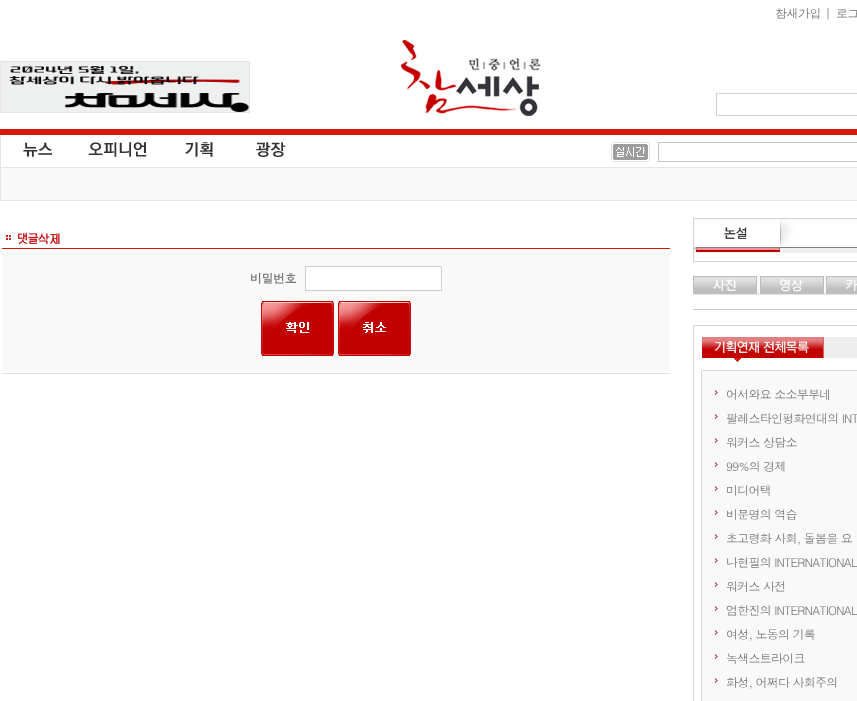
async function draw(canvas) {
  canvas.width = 857
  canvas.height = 701
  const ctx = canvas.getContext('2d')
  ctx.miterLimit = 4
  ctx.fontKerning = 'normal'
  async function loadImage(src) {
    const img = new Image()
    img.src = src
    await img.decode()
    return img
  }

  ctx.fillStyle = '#fff'
  ctx.fillRect(0, 0, 857, 701)
  ctx.letterSpacing = '-0.5px'
  ctx.font = '12px Dotum'
  ctx.fillStyle = '#767676'
  ctx.fillText('참새가입', 775, 18)
  ctx.letterSpacing = '-0.75px'
  ctx.fillText('|', 825, 18)
  ctx.letterSpacing = '-0.5px'
  ctx.fillText('로그', 836, 18)
  ctx.strokeStyle = '#e5e5e5'
  ctx.strokeRect(0.5, 61.5, 249, 51)
  ctx.drawImage(await loadImage('image0.png'), 1, 62, 248, 50)
  ctx.drawImage(await loadImage('image1.png'), 401, 40, 140, 76)
  ctx.fillStyle = '#d1d1d1'
  ctx.fillRect(716, 93, 141, 1)
  ctx.fillRect(716, 115, 141, 1)
  ctx.fillRect(716, 93, 1, 23)
  ctx.drawImage(await loadImage('image2.png'), 0, 129, 857, 6)
  ctx.fillStyle = '#e5e5e5'
  ctx.fillRect(0, 167, 857, 1)
  ctx.fillRect(0, 135, 1, 33)
  ctx.drawImage(await loadImage('image3.png'), 2, 130, 50, 27)
  ctx.drawImage(await loadImage('image4.png'), 88, 142, 59, 15)
  ctx.drawImage(await loadImage('image5.png'), 185, 142, 28, 15)
  ctx.drawImage(await loadImage('image6.png'), 256, 142, 30, 15)
  ctx.fillStyle = '#f9f9f9'
  ctx.fillRect(1, 168, 856, 32)
  ctx.fillStyle = '#e5e5e5'
  ctx.fillRect(0, 200, 857, 1)
  ctx.fillRect(0, 168, 1, 33)
  ctx.drawImage(await loadImage('image7.png'), 611, 142, 39, 20)
  ctx.strokeStyle = '#c4c4c4'
  ctx.strokeRect(658.5, 142.5, 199, 19)
  ctx.fillStyle = '#e3e3e3'
  ctx.fillRect(2, 373, 668, 1)
  ctx.fillStyle = '#f9f9f9'
  ctx.fillRect(2, 251, 668, 121)
  ctx.drawImage(await loadImage('image8.png'), 6, 233, 54, 11)
  ctx.fillStyle = '#d8160a'
  ctx.fillRect(2, 248, 668, 1)
  ctx.font = 'bold 12px Dotum'
  ctx.fillStyle = '#767676'
  ctx.fillText('비밀번호', 250, 283)
  ctx.fillStyle = '#fff'
  ctx.beginPath()
  ctx.rect(305.5, 266.5, 136, 24)
  ctx.fill()
  ctx.strokeStyle = '#cdcdcd'
  ctx.stroke()
  ctx.drawImage(await loadImage('image9.png'), 261, 301, 73, 55)
  ctx.drawImage(await loadImage('image10.png'), 338, 301, 73, 55)
  ctx.strokeStyle = '#d3d3d3'
  ctx.strokeRect(693.5, 218.5, 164, 43)
  ctx.drawImage(await loadImage('image11.png'), 694, 219, 163, 34)
  ctx.drawImage(await loadImage('image12.png'), 694, 276, 163, 19)
  ctx.drawImage(await loadImage('image13.png'), 693, 276, 64, 18)
  ctx.drawImage(await loadImage('image14.png'), 760, 276, 64, 18)
  ctx.drawImage(await loadImage('image15.png'), 826, 276, 31, 18)
  ctx.fillStyle = '#c8c8c8'
  ctx.fillRect(693, 309, 164, 1)
  ctx.strokeStyle = '#d4d4d4'
  ctx.strokeRect(693.5, 325.5, 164, 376)
  ctx.drawImage(await loadImage('image16.png'), 702, 337, 155, 25)
  ctx.fillStyle = '#f9f9f9'
  ctx.beginPath()
  ctx.rect(701.5, 370.5, 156, 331)
  ctx.fill()
  ctx.strokeStyle = '#d8d8d8'
  ctx.stroke()
  ctx.drawImage(await loadImage('image17.png'), 715, 390, 3, 5)
  ctx.letterSpacing = '-0.75px'
  ctx.font = '12px Dotum'
  ctx.fillStyle = '#767676'
  ctx.fillText('어서와요 소소부부네', 726, 399)
  ctx.drawImage(await loadImage('image17.png'), 715, 414, 3, 5)
  ctx.fillText('팔레스타인평화연대의 INT', 726, 423)
  ctx.drawImage(await loadImage('image17.png'), 715, 438, 3, 5)
  ctx.fillText('워커스 상담소', 726, 447)
  ctx.drawImage(await loadImage('image17.png'), 715, 462, 3, 5)
  ctx.fillText('99%의 경제', 726, 471)
  ctx.drawImage(await loadImage('image17.png'), 715, 486, 3, 5)
  ctx.fillText('미디어택', 726, 495)
  ctx.drawImage(await loadImage('image17.png'), 715, 510, 3, 5)
  ctx.fillText('비문명의 역습', 726, 519)
  ctx.drawImage(await loadImage('image17.png'), 715, 534, 3, 5)
  ctx.fillText('초고령화 사회, 돌봄을 요', 726, 543)
  ctx.drawImage(await loadImage('image17.png'), 715, 558, 3, 5)
  ctx.fillText('나현필의 INTERNATIONAL', 726, 567)
  ctx.drawImage(await loadImage('image17.png'), 715, 582, 3, 5)
  ctx.fillText('워커스 사전', 726, 591)
  ctx.drawImage(await loadImage('image17.png'), 715, 606, 3, 5)
  ctx.fillText('엄한진의 INTERNATIONAL', 726, 615)
  ctx.drawImage(await loadImage('image17.png'), 715, 630, 3, 5)
  ctx.fillText('여성, 노동의 기록', 726, 639)
  ctx.drawImage(await loadImage('image17.png'), 715, 654, 3, 5)
  ctx.fillText('녹색스트라이크', 726, 663)
  ctx.drawImage(await loadImage('image17.png'), 715, 678, 3, 5)
  ctx.fillText('화성, 어쩌다 사회주의', 726, 687)
}

draw(document.querySelector('canvas'))
